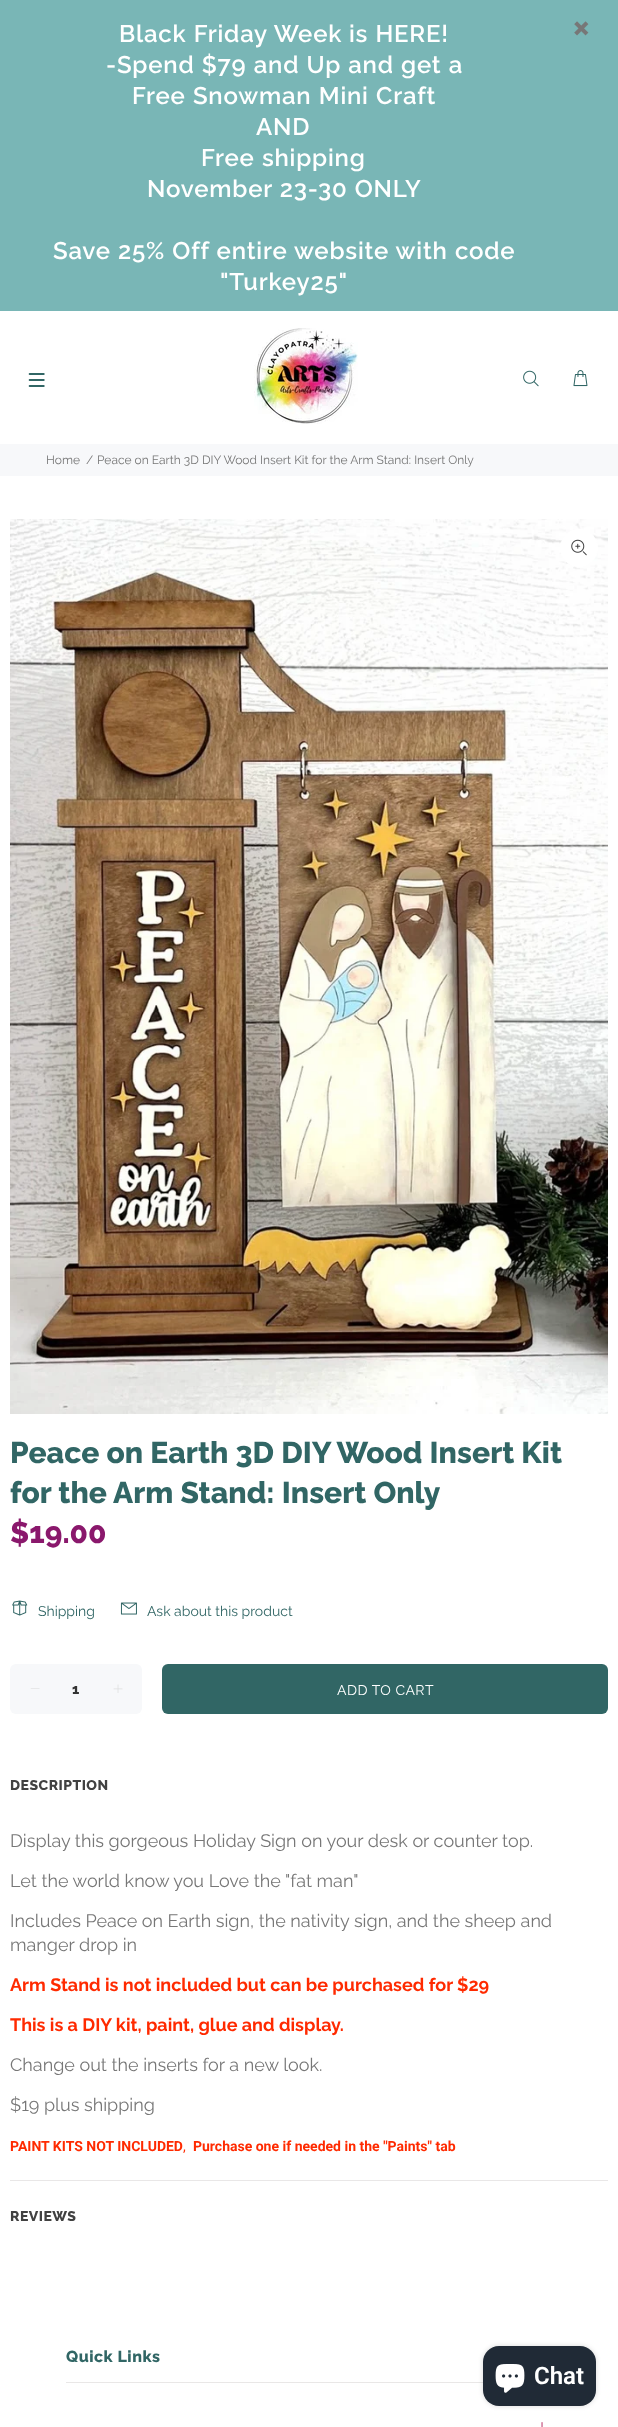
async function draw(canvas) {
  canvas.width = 618
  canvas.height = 2427
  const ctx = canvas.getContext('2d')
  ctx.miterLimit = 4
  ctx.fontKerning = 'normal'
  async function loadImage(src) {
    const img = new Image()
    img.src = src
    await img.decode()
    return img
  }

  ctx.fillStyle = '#fff'
  ctx.fillRect(0, 0, 618, 2427)
  ctx.fillStyle = '#79b6b6'
  ctx.fillRect(0, 0, 618, 311)
  ctx.letterSpacing = '0.8px'
  ctx.wordSpacing = '0.5px'
  ctx.font = '600 24px Raleway'
  ctx.fillStyle = '#fff'
  ctx.fillText('Black Friday Week', 119, 42)
  ctx.fillText('is HERE!', 349, 42)
  ctx.fillText('-Spend $79 and Up and get a', 106, 73)
  ctx.fillText('Free Snowman Mini Craft', 132, 104)
  ctx.wordSpacing = '0px'
  ctx.fillText('AND', 256, 135)
  ctx.wordSpacing = '0.5px'
  ctx.fillText('Free shipping', 201, 166)
  ctx.fillText('November 23-30 ONLY', 147, 197)
  ctx.fillText('Save 25% Off entire website with code', 53, 259)
  ctx.wordSpacing = '0px'
  ctx.fillText('"Turkey25"', 220, 290)
  ctx.drawImage(await loadImage('image0.png'), 574, 21, 15, 15)
  ctx.drawImage(await loadImage('image1.png'), 28, 373, 17, 14)
  ctx.drawImage(await loadImage('image2.png'), 254, 328, 104, 96)
  ctx.drawImage(await loadImage('image3.png'), 523, 370, 16, 17)
  ctx.drawImage(await loadImage('image4.png'), 573, 370, 15, 17)
  ctx.fillStyle = '#f7f8fa'
  ctx.fillRect(0, 444, 618, 32)
  ctx.letterSpacing = '0px'
  ctx.font = '12px Raleway'
  ctx.fillStyle = '#777'
  ctx.fillText('Home', 46, 464)
  ctx.fillText('/', 86, 464)
  ctx.fillText('Peace on Earth 3D DIY Wood Insert Kit for the Arm Stand: Insert Only', 97, 464)
  ctx.drawImage(await loadImage('image5.png'), 10, 519, 598, 895)
  ctx.fillStyle = '#fff'
  ctx.beginPath()
  ctx.arc(579, 548, 19, 0, 2 * Math.PI)
  ctx.fill()
  ctx.drawImage(await loadImage('image6.png'), 571, 539, 16, 17)
  ctx.letterSpacing = '0.05px'
  ctx.font = '800 30px Raleway'
  ctx.fillStyle = '#316665'
  ctx.fillText('Peace on Earth 3D DIY Wood Insert Kit', 10, 1463)
  ctx.fillText('for the Arm Stand: Insert Only', 10, 1503)
  ctx.letterSpacing = '0px'
  ctx.fillStyle = '#8a186c'
  ctx.fillText('$19.00', 10, 1543)
  ctx.drawImage(await loadImage('image7.png'), 12, 1600, 16, 16)
  ctx.font = '14px Raleway'
  ctx.fillStyle = '#316665'
  ctx.fillText('Shipping', 38, 1616)
  ctx.drawImage(await loadImage('image8.png'), 120, 1602, 17, 13)
  ctx.fillText('Ask about this product', 147, 1616)
  ctx.fillStyle = '#f7f8fa'
  ctx.beginPath()
  ctx.roundRect(10, 1664, 132, 50, 6)
  ctx.fill()
  ctx.fillStyle = '#d8d8d8'
  ctx.beginPath()
  ctx.moveTo(39.5, 1688.5)
  ctx.lineTo(39.5, 1689)
  ctx.lineTo(30.5, 1689)
  ctx.lineTo(31, 1688.5)
  ctx.closePath()
  ctx.fill()
  ctx.font = '800 14px Raleway'
  ctx.fillStyle = '#333'
  ctx.fillText('1', 72, 1694)
  ctx.drawImage(await loadImage('image9.png'), 113, 1684, 10, 9)
  ctx.fillStyle = '#316665'
  ctx.beginPath()
  ctx.roundRect(162, 1664, 446, 50, 6)
  ctx.fill()
  ctx.letterSpacing = '0.5px'
  ctx.font = '14px Raleway'
  ctx.fillStyle = '#fff'
  ctx.fillText('ADD TO CART', 337, 1695)
  ctx.fillStyle = '#e9e7e7'
  ctx.fillRect(10, 2180, 598, 1)
  ctx.font = '800 14px Raleway'
  ctx.fillStyle = '#414141'
  ctx.fillText('DESCRIPTION', 10, 1790)
  ctx.letterSpacing = '0px'
  ctx.font = '18px Raleway'
  ctx.fillStyle = '#777'
  ctx.fillText('Display this gorgeous Holiday Sign on your desk or counter top.', 10, 1847)
  ctx.fillText('Let the world know you Love the "fat man"', 10, 1887)
  ctx.fillText('Includes Peace on Earth sign, the nativity sign, and the sheep and', 10, 1927)
  ctx.fillText('manger drop in', 10, 1951)
  ctx.font = 'bold 18px Raleway'
  ctx.fillStyle = '#ff2a00'
  ctx.fillText('Arm Stand is not included but can be purchased for $29', 10, 1991)
  ctx.fillText('This is a DIY kit, paint, glue and display.', 10, 2031)
  ctx.font = '18px Raleway'
  ctx.fillStyle = '#777'
  ctx.fillText('Change out the inserts for a new look.', 10, 2071)
  ctx.fillText('$19 plus shipping', 10, 2111)
  ctx.font = 'bold 14px Roboto'
  ctx.fillStyle = '#ff2a00'
  ctx.fillText('PAINT KITS NOT INCLUDED', 10, 2151)
  ctx.font = '14px Roboto'
  ctx.fillText(',', 183, 2151)
  ctx.font = 'bold 14px Roboto'
  ctx.fillText('Purchase one if needed in the "Paints" tab', 193, 2151)
  ctx.letterSpacing = '0.5px'
  ctx.font = '800 14px Raleway'
  ctx.fillStyle = '#414141'
  ctx.fillText('REVIEWS', 10, 2221)
  ctx.fillStyle = '#e9e7e7'
  ctx.fillRect(66, 2382, 417, 1)
  ctx.font = '800 16px Raleway'
  ctx.fillStyle = '#316665'
  ctx.fillText('Quick Links', 66, 2362)
  ctx.drawImage(await loadImage('image10.png'), 541, 2422, 2, 5)
  ctx.fillStyle = '#00000026'
  ctx.filter = 'blur(2.5px)'
  ctx.beginPath()
  ctx.roundRect(483, 2346, 113, 60, 16)
  ctx.fill()
  ctx.filter = 'none'
  ctx.fillStyle = '#202a36'
  ctx.beginPath()
  ctx.roundRect(483, 2346, 113, 60, 16)
  ctx.fill()
  ctx.drawImage(await loadImage('image11.png'), 495, 2364, 30, 29)
  ctx.letterSpacing = '0px'
  ctx.font = '600 24px Roboto'
  ctx.fillStyle = '#fff'
  ctx.fillText('Chat', 534, 2384)
}

draw(document.querySelector('canvas'))
